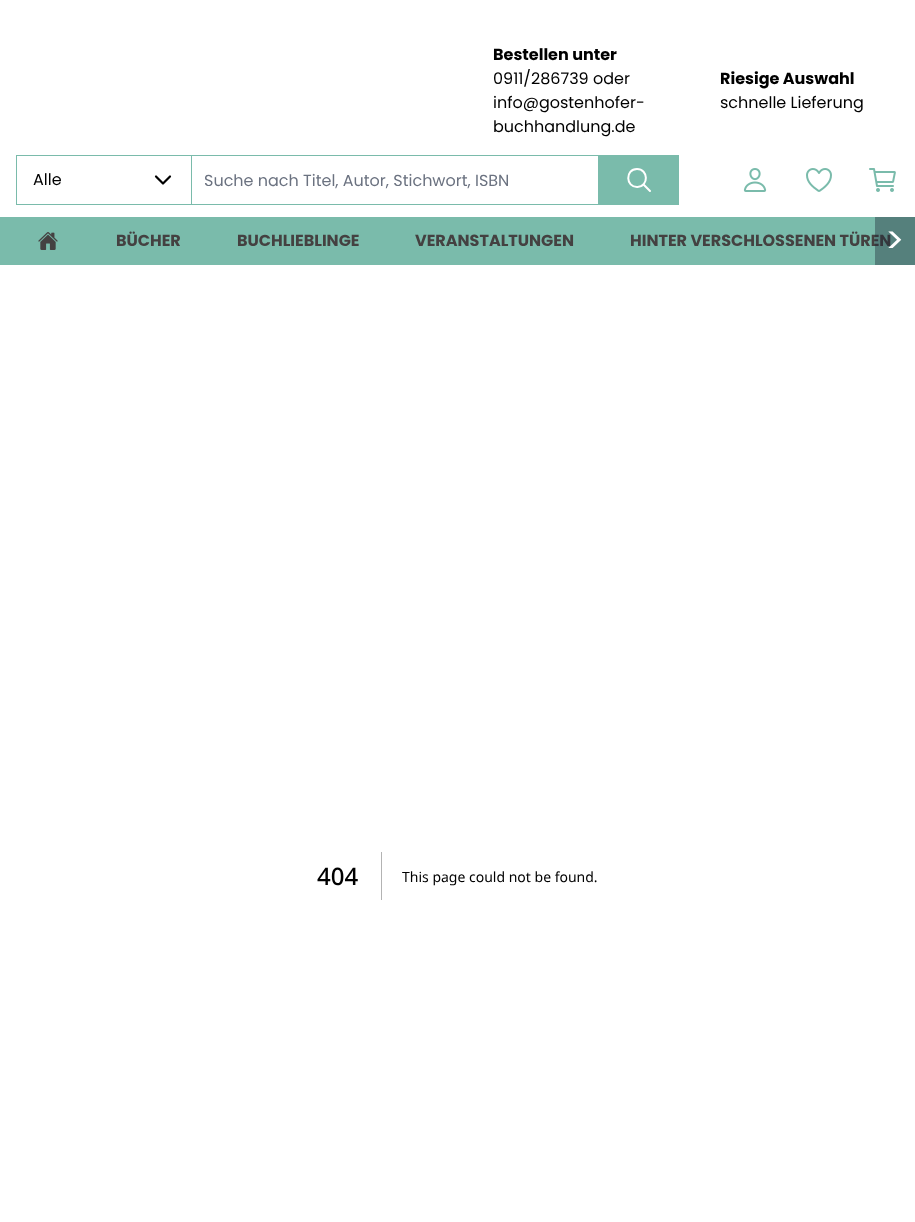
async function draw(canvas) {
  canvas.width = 915
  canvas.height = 1222
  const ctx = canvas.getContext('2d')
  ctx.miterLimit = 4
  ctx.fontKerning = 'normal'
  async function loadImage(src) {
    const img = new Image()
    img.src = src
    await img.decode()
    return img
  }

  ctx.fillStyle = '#fff'
  ctx.fillRect(0, 0, 915, 1222)
  ctx.font = 'bold 16px Poppins'
  ctx.fillStyle = '#000'
  ctx.fillText('Bestellen unter', 493, 60)
  ctx.font = '16px Poppins'
  ctx.fillText('0911/286739 oder', 493, 84)
  ctx.fillText('info@gostenhofer-', 493, 108)
  ctx.fillText('buchhandlung.de', 493, 132)
  ctx.font = 'bold 16px Poppins'
  ctx.fillText('Riesige Auswahl', 720, 84)
  ctx.font = '16px Poppins'
  ctx.fillText('schnelle Lieferung', 720, 108)
  ctx.strokeStyle = '#7abbab'
  ctx.strokeRect(191.5, 155.5, 407, 49)
  ctx.strokeRect(16.5, 155.5, 175, 49)
  ctx.fillText('Alle', 33, 185)
  ctx.beginPath()
  ctx.moveTo(156, 176.5)
  ctx.lineTo(163, 183.5)
  ctx.lineTo(170, 176.5)
  ctx.strokeStyle = '#000'
  ctx.lineWidth = 2.2
  ctx.lineCap = 'round'
  ctx.lineJoin = 'round'
  ctx.stroke()
  ctx.fillStyle = '#6b7280'
  ctx.fillText('Suche nach Titel, Autor, Stichwort, ISBN', 204, 186)
  ctx.fillStyle = '#7abbab'
  ctx.fillRect(599, 155, 80, 50)
  ctx.beginPath()
  ctx.moveTo(637, 169)
  ctx.bezierCurveTo(625, 169, 625.5, 187.5, 637.5, 187)
  ctx.bezierCurveTo(649, 186.5, 648.5, 169, 637, 169)
  ctx.closePath()
  ctx.strokeStyle = '#fff'
  ctx.lineWidth = 2
  ctx.lineCap = 'butt'
  ctx.lineJoin = 'miter'
  ctx.stroke()
  ctx.beginPath()
  ctx.moveTo(644, 185)
  ctx.lineTo(650, 191)
  ctx.lineCap = 'round'
  ctx.stroke()
  ctx.drawImage(await loadImage('image0.png'), 743, 168, 24, 24)
  ctx.drawImage(await loadImage('image1.png'), 806, 168, 26, 24)
  ctx.drawImage(await loadImage('image2.png'), 869, 168, 27, 24)
  ctx.fillRect(0, 217, 915, 48)
  ctx.drawImage(await loadImage('image3.png'), 38, 232, 20, 18)
  ctx.font = 'bold 16px Poppins'
  ctx.fillStyle = '#444141'
  ctx.fillText('BÜCHER', 116, 246)
  ctx.fillText('BUCHLIEBLINGE', 237, 246)
  ctx.fillText('VERANSTALTUNGEN', 415, 246)
  ctx.fillText('HINTER VERSCHLOSSENEN TÜREN', 630, 246)
  ctx.fillStyle = '#1f293766'
  ctx.fillRect(875, 217, 40, 48)
  ctx.font = '36px Poppins'
  ctx.fillStyle = '#fff'
  ctx.fillText('>', 885, 253)
  ctx.fillStyle = '#b3b3b3'
  ctx.fillRect(381, 852, 1, 48)
  ctx.font = '500 24px Noto Sans'
  ctx.fillStyle = '#000'
  ctx.fillText('404', 317, 885)
  ctx.font = '14px Noto Sans'
  ctx.fillText('This page could not be found.', 402, 882)
}

draw(document.querySelector('canvas'))
